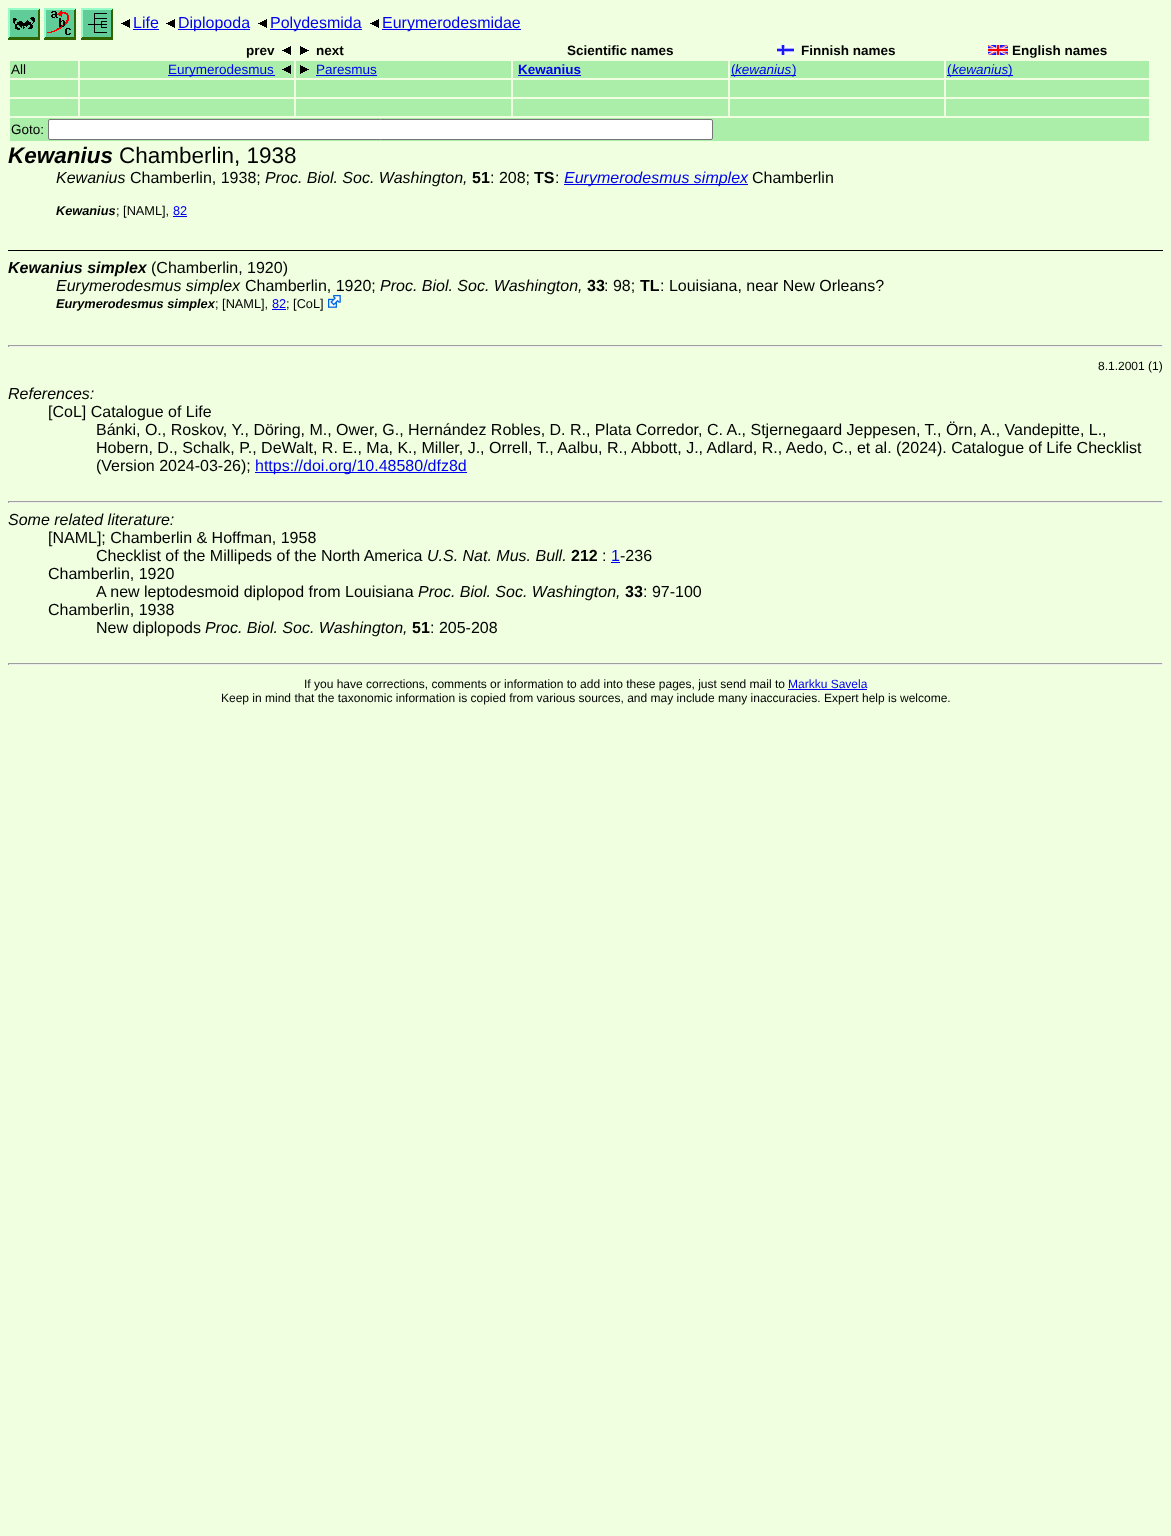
async function draw(canvas) {
  canvas.width = 1171
  canvas.height = 1536
  const ctx = canvas.getContext('2d')
  ctx.miterLimit = 4
  ctx.fontKerning = 'normal'
  async function loadImage(src) {
    const img = new Image()
    img.src = src
    await img.decode()
    return img
  }

  ctx.fillStyle = '#f0ffe0'
  ctx.fillRect(0, 0, 1171, 1536)
  ctx.drawImage(await loadImage('image0.png'), 8, 8, 32, 32)
  ctx.drawImage(await loadImage('image1.png'), 44, 8, 32, 32)
  ctx.drawImage(await loadImage('image2.png'), 81, 8, 32, 32)
  ctx.drawImage(await loadImage('image3.png'), 121, 19, 9, 9)
  ctx.font = '16px Liberation Sans'
  ctx.fillStyle = '#00e'
  ctx.fillText('Life', 133, 28)
  ctx.fillRect(133, 29, 26, 1)
  ctx.drawImage(await loadImage('image3.png'), 166, 19, 9, 9)
  ctx.fillRect(178, 29, 72, 1)
  ctx.fillText('Diplopoda', 178, 28)
  ctx.drawImage(await loadImage('image3.png'), 258, 19, 9, 9)
  ctx.fillRect(270, 29, 92, 1)
  ctx.fillText('Polydesmida', 270, 28)
  ctx.drawImage(await loadImage('image3.png'), 370, 19, 9, 9)
  ctx.fillRect(382, 29, 139, 1)
  ctx.fillText('Eurymerodesmidae', 382, 28)
  ctx.font = 'bold 13.5px Liberation Sans'
  ctx.fillStyle = '#000'
  ctx.fillText('prev', 246, 55)
  ctx.drawImage(await loadImage('image3.png'), 282, 46, 9, 9)
  ctx.drawImage(await loadImage('image4.png'), 300, 46, 9, 9)
  ctx.fillText('next', 316, 55)
  ctx.fillText('Scientific names', 567, 55)
  ctx.drawImage(await loadImage('image5.png'), 777, 45, 17, 10)
  ctx.fillText('Finnish names', 801, 55)
  ctx.drawImage(await loadImage('image6.png'), 988, 45, 20, 10)
  ctx.fillText('English names', 1012, 55)
  ctx.fillStyle = '#aea'
  ctx.fillRect(10, 61, 68, 17)
  ctx.font = '13.5px Liberation Sans'
  ctx.fillStyle = '#000'
  ctx.fillText('All', 11, 74)
  ctx.fillStyle = '#aea'
  ctx.fillRect(80, 61, 214, 17)
  ctx.fillStyle = '#00e'
  ctx.fillRect(168, 75, 107, 1)
  ctx.fillText('Eurymerodesmus', 168, 74)
  ctx.drawImage(await loadImage('image7.png'), 282, 65, 9, 9)
  ctx.fillStyle = '#aea'
  ctx.fillRect(296, 61, 215, 17)
  ctx.drawImage(await loadImage('image8.png'), 300, 65, 9, 9)
  ctx.fillStyle = '#00e'
  ctx.fillText('Paresmus', 316, 74)
  ctx.fillRect(316, 75, 61, 1)
  ctx.fillStyle = '#aea'
  ctx.fillRect(513, 61, 215, 17)
  ctx.font = 'bold 13.5px Liberation Sans'
  ctx.fillStyle = '#00e'
  ctx.fillText('Kewanius', 518, 74)
  ctx.fillRect(518, 75, 63, 1)
  ctx.fillStyle = '#aea'
  ctx.fillRect(730, 61, 214, 17)
  ctx.fillStyle = '#00e'
  ctx.fillRect(731, 75, 65, 1)
  ctx.font = '13.5px Liberation Sans'
  ctx.fillText('(', 731, 74)
  ctx.font = 'italic 13.5px Liberation Sans'
  ctx.fillText('kewanius', 735, 74)
  ctx.font = '13.5px Liberation Sans'
  ctx.fillText(')', 792, 74)
  ctx.fillStyle = '#aea'
  ctx.fillRect(946, 61, 203, 17)
  ctx.fillStyle = '#00e'
  ctx.fillRect(947, 75, 66, 1)
  ctx.fillText('(', 947, 74)
  ctx.font = 'italic 13.5px Liberation Sans'
  ctx.fillText('kewanius', 952, 74)
  ctx.font = '13.5px Liberation Sans'
  ctx.fillText(')', 1008, 74)
  ctx.fillStyle = '#aea'
  ctx.fillRect(10, 80, 68, 17)
  ctx.fillRect(80, 80, 214, 17)
  ctx.fillRect(296, 80, 215, 17)
  ctx.fillRect(513, 80, 215, 17)
  ctx.fillRect(730, 80, 214, 17)
  ctx.fillRect(946, 80, 203, 17)
  ctx.fillRect(10, 99, 68, 17)
  ctx.fillRect(80, 99, 214, 17)
  ctx.fillRect(296, 99, 215, 17)
  ctx.fillRect(513, 99, 215, 17)
  ctx.fillRect(730, 99, 214, 17)
  ctx.fillRect(946, 99, 203, 17)
  ctx.fillRect(10, 118, 1139, 23)
  ctx.fillStyle = '#000'
  ctx.fillText('Goto:', 11, 134)
  ctx.fillStyle = '#fff'
  ctx.beginPath()
  ctx.roundRect(48.5, 119.5, 664, 20, 1.5)
  ctx.fill()
  ctx.strokeStyle = '#767676'
  ctx.stroke()
  ctx.font = 'italic bold 22.5px Liberation Sans'
  ctx.fillStyle = '#000'
  ctx.fillText('Kewanius', 8, 163)
  ctx.font = '22.5px Liberation Sans'
  ctx.fillText('Chamberlin, 1938', 119, 163)
  ctx.font = 'italic 16px Liberation Sans'
  ctx.fillText('Kewanius', 56, 183)
  ctx.font = '16px Liberation Sans'
  ctx.fillText('Chamberlin, 1938;', 130, 183)
  ctx.font = 'italic 16px Liberation Sans'
  ctx.fillText('Proc. Biol. Soc. Washington,', 265, 183)
  ctx.font = 'bold 16px Liberation Sans'
  ctx.fillText('51', 472, 183)
  ctx.font = '16px Liberation Sans'
  ctx.fillText(': 208;', 490, 183)
  ctx.font = 'bold 16px Liberation Sans'
  ctx.fillText('TS', 534, 183)
  ctx.font = '16px Liberation Sans'
  ctx.fillText(':', 555, 183)
  ctx.fillStyle = '#00e'
  ctx.fillRect(564, 184, 184, 1)
  ctx.font = 'italic 16px Liberation Sans'
  ctx.fillText('Eurymerodesmus simplex', 564, 183)
  ctx.font = '16px Liberation Sans'
  ctx.fillStyle = '#000'
  ctx.fillText('Chamberlin', 752, 183)
  ctx.font = 'italic bold 12.75px Liberation Sans'
  ctx.fillText('Kewanius', 56, 215)
  ctx.font = '12.75px Liberation Sans'
  ctx.fillText('; [NAML],', 116, 215)
  ctx.fillStyle = '#00e'
  ctx.fillText('82', 173, 215)
  ctx.fillRect(173, 216, 14, 1)
  ctx.fillStyle = '#000'
  ctx.fillRect(8, 250, 1155, 1)
  ctx.font = 'italic bold 16px Liberation Sans'
  ctx.fillText('Kewanius simplex', 8, 273)
  ctx.font = '16px Liberation Sans'
  ctx.fillText('(Chamberlin, 1920)', 151, 273)
  ctx.font = 'italic 16px Liberation Sans'
  ctx.fillText('Eurymerodesmus simplex', 56, 291)
  ctx.font = '16px Liberation Sans'
  ctx.fillText('Chamberlin, 1920;', 245, 291)
  ctx.font = 'italic 16px Liberation Sans'
  ctx.fillText('Proc. Biol. Soc. Washington,', 380, 291)
  ctx.font = 'bold 16px Liberation Sans'
  ctx.fillText('33', 587, 291)
  ctx.font = '16px Liberation Sans'
  ctx.fillText(': 98;', 604, 291)
  ctx.font = 'bold 16px Liberation Sans'
  ctx.fillText('TL', 640, 291)
  ctx.font = '16px Liberation Sans'
  ctx.fillText(': Louisiana, near New Orleans?', 660, 291)
  ctx.font = 'italic bold 12.75px Liberation Sans'
  ctx.fillText('Eurymerodesmus simplex', 56, 308)
  ctx.font = '12.75px Liberation Sans'
  ctx.fillText('; [NAML],', 215, 308)
  ctx.fillStyle = '#00e'
  ctx.fillText('82', 272, 308)
  ctx.fillRect(272, 309, 14, 1)
  ctx.fillStyle = '#000'
  ctx.fillText('; [CoL]', 286, 308)
  ctx.drawImage(await loadImage('image9.png'), 328, 295, 13, 13)
  ctx.fillStyle = '#9f9f9f'
  ctx.fillRect(8, 345, 1155, 1)
  ctx.fillStyle = '#eee'
  ctx.fillRect(1162, 345, 1, 2)
  ctx.fillRect(8, 346, 1155, 1)
  ctx.fillStyle = '#9f9f9f'
  ctx.fillRect(8, 345, 1, 2)
  ctx.font = '12px Liberation Sans'
  ctx.fillStyle = '#000'
  ctx.fillText('8.1.2001 (1)', 1098, 370)
  ctx.font = 'italic 16px Liberation Sans'
  ctx.fillText('References:', 8, 399)
  ctx.font = '16px Liberation Sans'
  ctx.fillText('[CoL] Catalogue of Life', 48, 417)
  ctx.fillText('Bánki, O., Roskov, Y., Döring, M., Ower, G., Hernández Robles, D. R., Plata Corredor, C. A., Stjernegaard Jeppesen, T., Örn, A., Vandepitte, L.,', 96, 435)
  ctx.fillText('Hobern, D., Schalk, P., DeWalt, R. E., Ma, K., Miller, J., Orrell, T., Aalbu, R., Abbott, J., Adlard, R., Aedo, C., et al. (2024). Catalogue of Life Checklist', 96, 453)
  ctx.fillText('(Version 2024-03-26);', 96, 471)
  ctx.fillStyle = '#00e'
  ctx.fillRect(255, 472, 212, 1)
  ctx.fillText('https://doi.org/10.48580/dfz8d', 255, 471)
  ctx.fillStyle = '#9f9f9f'
  ctx.fillRect(8, 501, 1155, 1)
  ctx.fillStyle = '#eee'
  ctx.fillRect(1162, 501, 1, 2)
  ctx.fillRect(8, 502, 1155, 1)
  ctx.fillStyle = '#9f9f9f'
  ctx.fillRect(8, 501, 1, 2)
  ctx.font = 'italic 16px Liberation Sans'
  ctx.fillStyle = '#000'
  ctx.fillText('Some related literature:', 8, 525)
  ctx.font = '16px Liberation Sans'
  ctx.fillText('[NAML]; Chamberlin & Hoffman, 1958', 48, 543)
  ctx.fillText('Checklist of the Millipeds of the North America', 96, 561)
  ctx.font = 'italic 16px Liberation Sans'
  ctx.fillText('U.S. Nat. Mus. Bull.', 427, 561)
  ctx.font = 'bold 16px Liberation Sans'
  ctx.fillText('212', 571, 561)
  ctx.font = '16px Liberation Sans'
  ctx.fillText(':', 602, 561)
  ctx.fillStyle = '#00e'
  ctx.fillText('1', 611, 561)
  ctx.fillRect(611, 562, 9, 1)
  ctx.fillStyle = '#000'
  ctx.fillText('-236', 620, 561)
  ctx.fillText('Chamberlin, 1920', 48, 579)
  ctx.fillText('A new leptodesmoid diplopod from Louisiana', 96, 597)
  ctx.font = 'italic 16px Liberation Sans'
  ctx.fillText('Proc. Biol. Soc. Washington,', 418, 597)
  ctx.font = 'bold 16px Liberation Sans'
  ctx.fillText('33', 625, 597)
  ctx.font = '16px Liberation Sans'
  ctx.fillText(': 97-100', 643, 597)
  ctx.fillText('Chamberlin, 1938', 48, 615)
  ctx.fillText('New diplopods', 96, 633)
  ctx.font = 'italic 16px Liberation Sans'
  ctx.fillText('Proc. Biol. Soc. Washington,', 205, 633)
  ctx.font = 'bold 16px Liberation Sans'
  ctx.fillText('51', 412, 633)
  ctx.font = '16px Liberation Sans'
  ctx.fillText(': 205-208', 430, 633)
  ctx.fillStyle = '#9f9f9f'
  ctx.fillRect(8, 663, 1155, 1)
  ctx.fillStyle = '#eee'
  ctx.fillRect(1162, 663, 1, 2)
  ctx.fillRect(8, 664, 1155, 1)
  ctx.fillStyle = '#9f9f9f'
  ctx.fillRect(8, 663, 1, 2)
  ctx.font = '12px Liberation Sans'
  ctx.fillStyle = '#000'
  ctx.fillText('If you have corrections, comments or information to add into these pages, just send mail to', 304, 688)
  ctx.fillStyle = '#00e'
  ctx.fillText('Markku Savela', 788, 688)
  ctx.fillRect(788, 689, 79, 1)
  ctx.fillStyle = '#000'
  ctx.fillText('Keep in mind that the taxonomic information is copied from various sources, and may include many inaccuracies. Expert help is welcome.', 221, 702)
}

draw(document.querySelector('canvas'))
